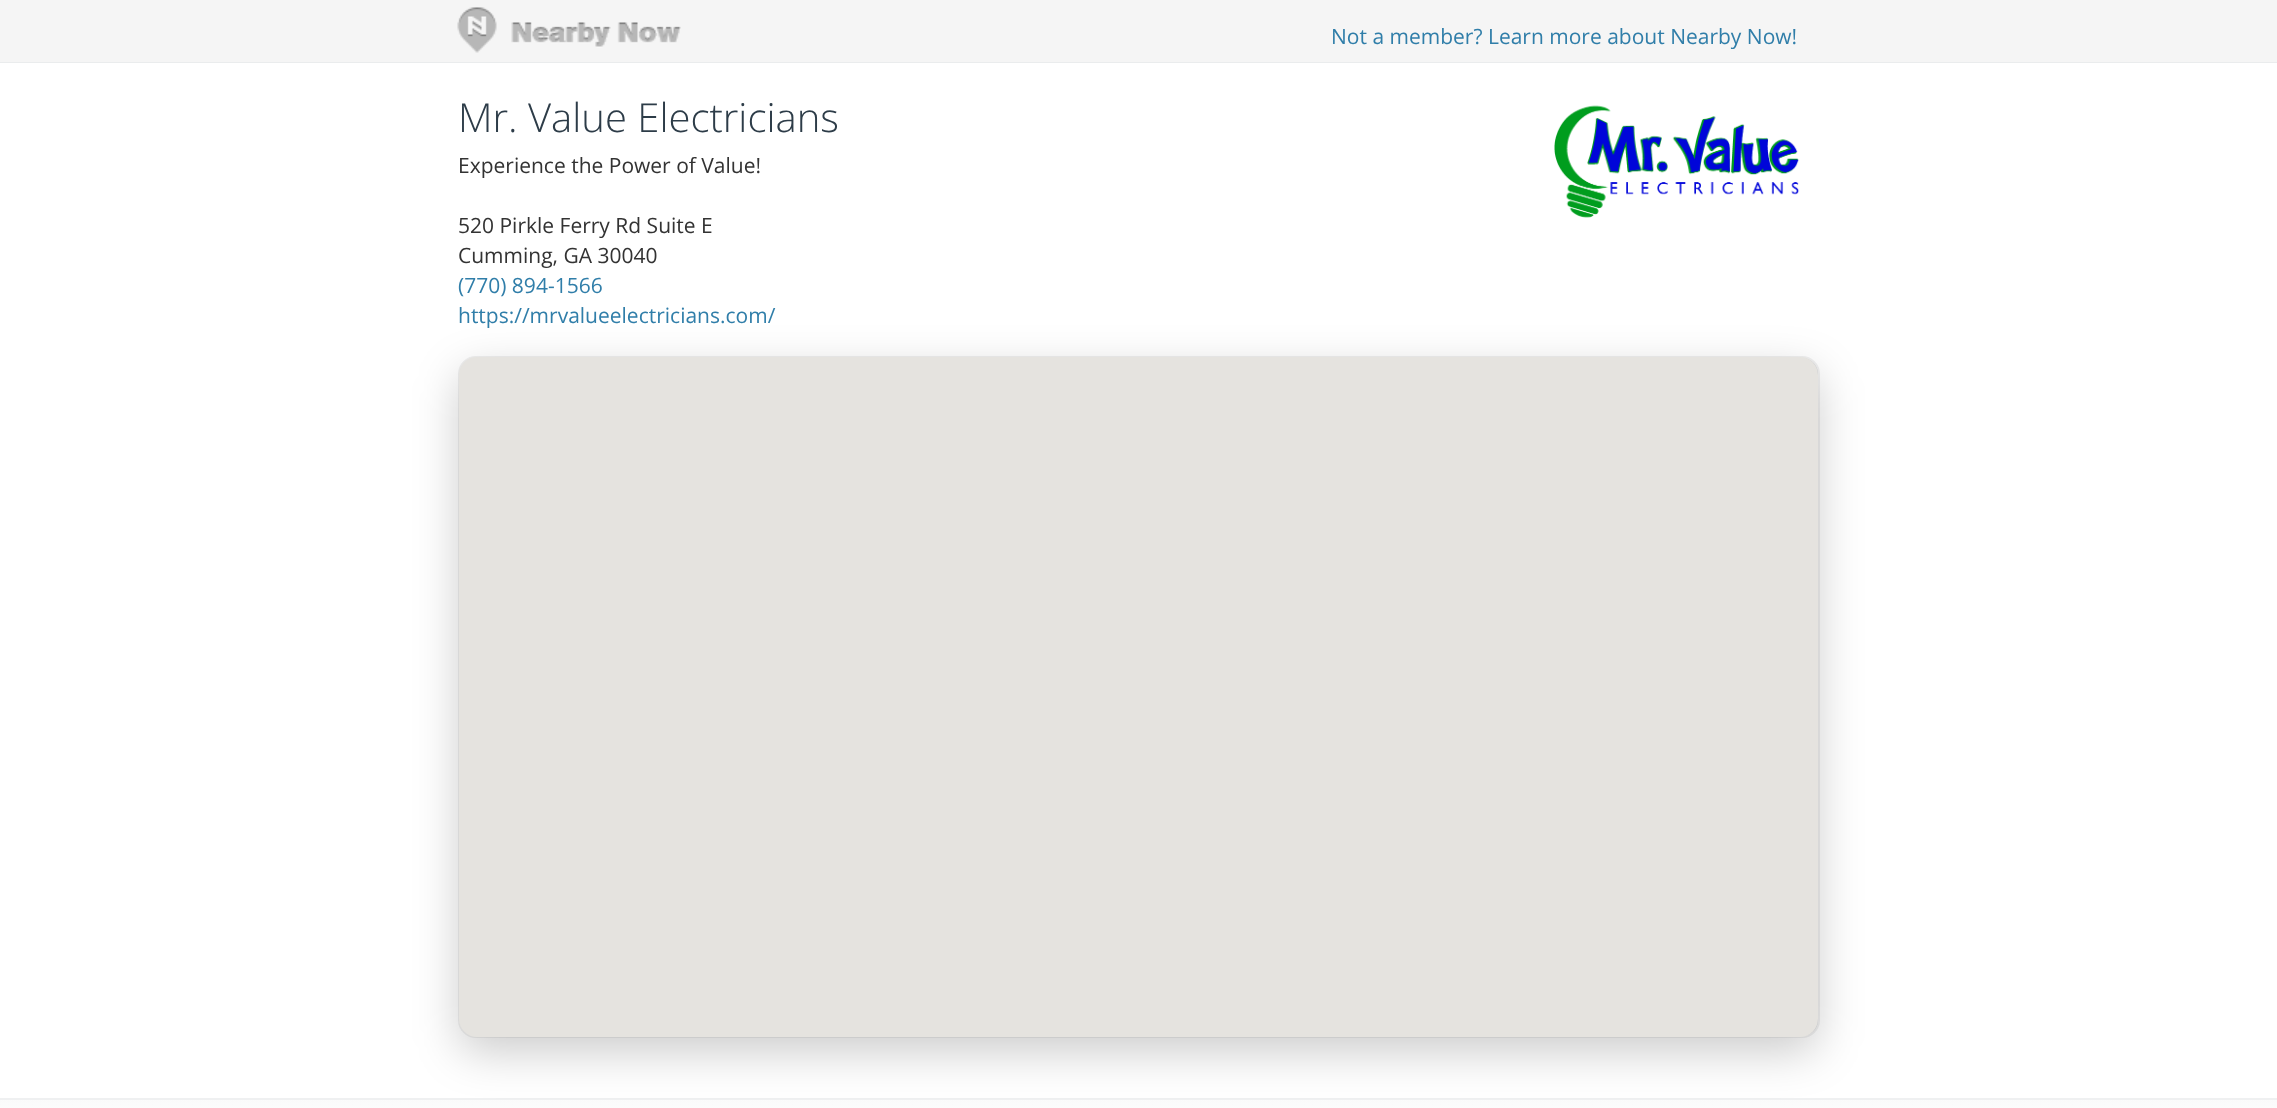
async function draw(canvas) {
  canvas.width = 2277
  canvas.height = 1108
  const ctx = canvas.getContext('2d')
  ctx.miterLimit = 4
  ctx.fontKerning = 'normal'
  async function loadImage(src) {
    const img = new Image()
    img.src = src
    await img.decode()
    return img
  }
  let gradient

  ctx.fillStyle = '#fff'
  ctx.fillRect(0, 0, 2277, 1108)
  ctx.fillStyle = '#eaeced'
  ctx.fillRect(0, 62, 2277, 1)
  ctx.fillStyle = '#f5f5f5'
  ctx.fillRect(0, 0, 2277, 62)
  ctx.drawImage(await loadImage('image0.png'), 457, 7, 224, 46)
  ctx.font = '21px Open Sans'
  ctx.fillStyle = '#307ea9'
  ctx.fillText('Not a member? Learn more about Nearby Now!', 1331, 44)
  ctx.font = '300 40px Open Sans'
  ctx.fillStyle = '#2d3c48'
  ctx.fillText('Mr. Value Electricians', 458, 132)
  ctx.font = '21px Open Sans'
  ctx.fillStyle = '#333'
  ctx.fillText('Experience the Power of Value!', 458, 173)
  ctx.fillText('520 Pirkle Ferry Rd Suite E', 458, 233)
  ctx.fillText('Cumming, GA 30040', 458, 263)
  ctx.fillStyle = '#307ea9'
  ctx.fillText('(770) 894-1566', 458, 293)
  ctx.fillText('https://mrvalueelectricians.com/', 458, 323)
  ctx.drawImage(await loadImage('image1.png'), 1554, 105, 246, 113)
  ctx.fillStyle = '#cdd0d4'
  ctx.beginPath()
  ctx.roundRect(459, 357, 1360, 680, 17)
  ctx.fill()
  ctx.strokeStyle = '#f0f0f0'
  ctx.lineWidth = 2
  ctx.stroke()
  gradient = ctx.createLinearGradient(1139, 1099, 1139, 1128)
  gradient.addColorStop(0, '#fafafa')
  gradient.addColorStop(1, '#fff')
  ctx.fillStyle = gradient
  ctx.fillRect(0, 1100, 2277, 8)
  ctx.fillStyle = '#eff0f1'
  ctx.fillRect(0, 1098, 2277, 2)
  ctx.fillStyle = '#00000033'
  ctx.filter = 'blur(22.5px)'
  ctx.beginPath()
  ctx.roundRect(459, 372, 1359, 680, 18)
  ctx.fill()
  ctx.filter = 'none'
  ctx.fillStyle = '#e5e3df'
  ctx.beginPath()
  ctx.roundRect(459, 357, 1359, 680, 18)
  ctx.fill()
}

draw(document.querySelector('canvas'))
